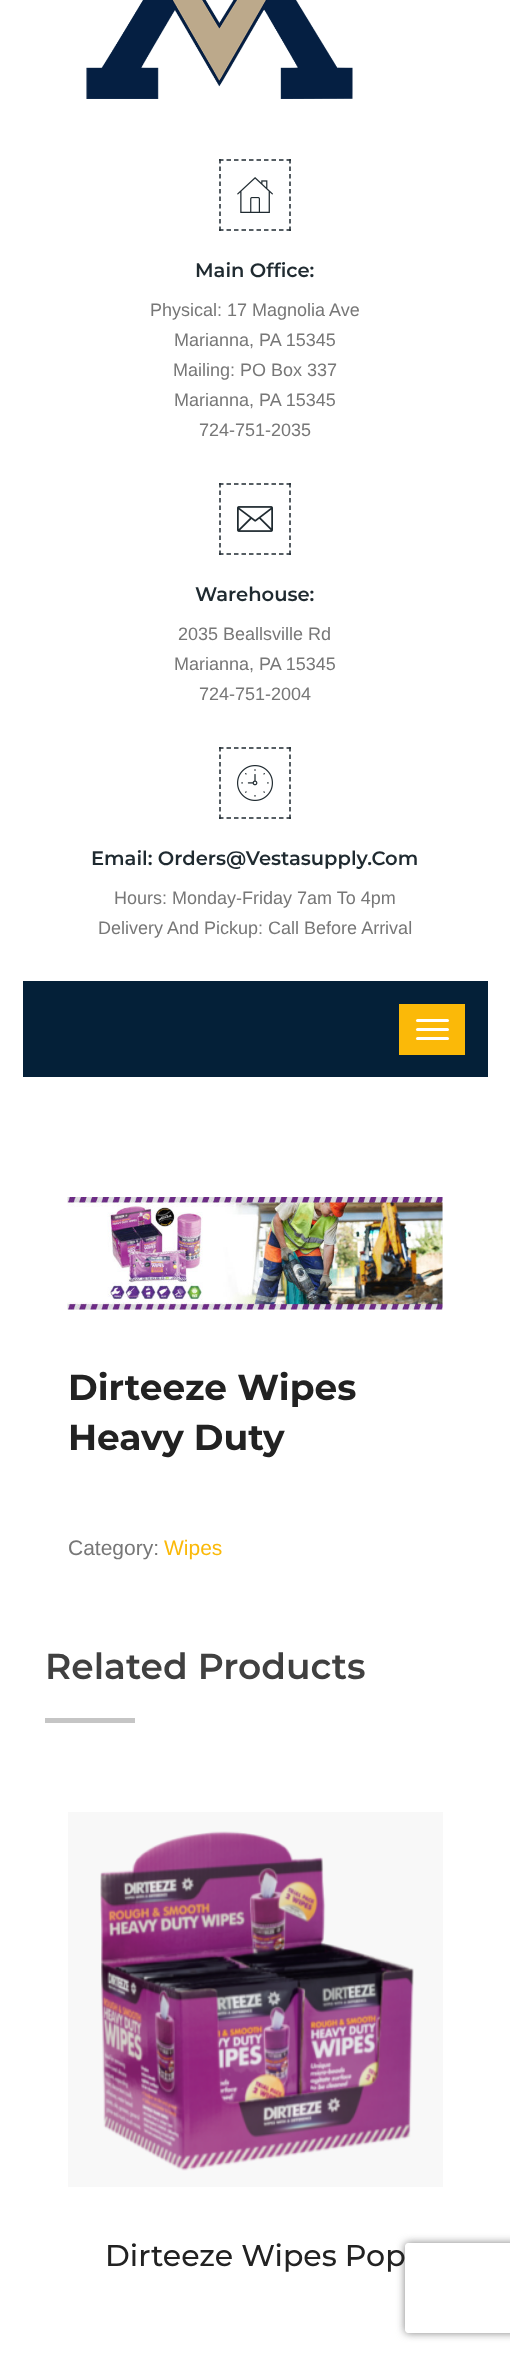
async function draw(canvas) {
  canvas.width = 510
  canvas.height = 2353
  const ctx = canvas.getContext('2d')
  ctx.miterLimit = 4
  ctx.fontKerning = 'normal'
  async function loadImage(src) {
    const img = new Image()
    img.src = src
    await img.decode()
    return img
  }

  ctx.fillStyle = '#fff'
  ctx.fillRect(0, 0, 510, 2353)
  ctx.drawImage(await loadImage('image0.png'), 86, 0, 267, 99)
  ctx.beginPath()
  ctx.moveTo(219, 160)
  ctx.lineTo(291, 160)
  ctx.strokeStyle = '#1f2a30'
  ctx.lineWidth = 1.5
  ctx.setLineDash([4.5, 3])
  ctx.stroke()
  ctx.beginPath()
  ctx.moveTo(290, 159)
  ctx.lineTo(290, 231)
  ctx.stroke()
  ctx.beginPath()
  ctx.moveTo(219, 230)
  ctx.lineTo(291, 230)
  ctx.stroke()
  ctx.beginPath()
  ctx.moveTo(220, 159)
  ctx.lineTo(220, 231)
  ctx.stroke()
  ctx.drawImage(await loadImage('image1.png'), 237, 177, 36, 36)
  ctx.font = '600 19.5px Montserrat'
  ctx.fillStyle = '#1f2a30'
  ctx.fillText('Main Office:', 195, 277)
  ctx.font = '18px Liberation Sans'
  ctx.fillStyle = '#777'
  ctx.fillText('Physical: 17 Magnolia Ave', 150, 316)
  ctx.fillText('Marianna, PA 15345', 174, 346)
  ctx.fillText('Mailing: PO Box 337', 173, 376)
  ctx.fillText('Marianna, PA 15345', 174, 406)
  ctx.fillText('724-751-2035', 199, 436)
  ctx.beginPath()
  ctx.moveTo(219, 484)
  ctx.lineTo(291, 484)
  ctx.stroke()
  ctx.beginPath()
  ctx.moveTo(290, 483)
  ctx.lineTo(290, 555)
  ctx.stroke()
  ctx.beginPath()
  ctx.moveTo(219, 554)
  ctx.lineTo(291, 554)
  ctx.stroke()
  ctx.beginPath()
  ctx.moveTo(220, 483)
  ctx.lineTo(220, 555)
  ctx.stroke()
  ctx.drawImage(await loadImage('image2.png'), 237, 506, 36, 26)
  ctx.font = '600 19.5px Montserrat'
  ctx.fillStyle = '#1f2a30'
  ctx.fillText('Warehouse:', 195, 601)
  ctx.font = '18px Liberation Sans'
  ctx.fillStyle = '#777'
  ctx.fillText('2035 Beallsville Rd', 178, 640)
  ctx.fillText('Marianna, PA 15345', 174, 670)
  ctx.fillText('724-751-2004', 199, 700)
  ctx.beginPath()
  ctx.moveTo(219, 748)
  ctx.lineTo(291, 748)
  ctx.stroke()
  ctx.beginPath()
  ctx.moveTo(290, 747)
  ctx.lineTo(290, 819)
  ctx.stroke()
  ctx.beginPath()
  ctx.moveTo(219, 818)
  ctx.lineTo(291, 818)
  ctx.stroke()
  ctx.beginPath()
  ctx.moveTo(220, 747)
  ctx.lineTo(220, 819)
  ctx.stroke()
  ctx.drawImage(await loadImage('image3.png'), 237, 765, 36, 36)
  ctx.font = '600 19.5px Montserrat'
  ctx.fillStyle = '#1f2a30'
  ctx.fillText('Email: Orders@Vestasupply.Com', 91, 865)
  ctx.font = '18px Liberation Sans'
  ctx.fillStyle = '#777'
  ctx.fillText('Hours: Monday-Friday 7am To 4pm', 114, 904)
  ctx.fillText('Delivery And Pickup: Call Before Arrival', 98, 934)
  ctx.fillStyle = '#042038'
  ctx.fillRect(23, 981, 465, 96)
  ctx.fillStyle = '#fbb908'
  ctx.fillRect(399, 1004, 66, 51)
  ctx.fillStyle = '#fff'
  ctx.beginPath()
  ctx.roundRect(416, 1019, 33, 3, 1.5)
  ctx.fill()
  ctx.beginPath()
  ctx.roundRect(416, 1028, 33, 3, 1.5)
  ctx.fill()
  ctx.beginPath()
  ctx.roundRect(416, 1037, 33, 3, 1.5)
  ctx.fill()
  ctx.fillStyle = '#f7f7f7'
  ctx.fillRect(68, 1197, 375, 113)
  ctx.drawImage(await loadImage('image4.png'), 67, 1197, 376, 113)
  ctx.font = 'bold 36px Montserrat'
  ctx.fillStyle = '#222'
  ctx.fillText('Dirteeze Wipes', 68, 1400)
  ctx.fillText('Heavy Duty', 68, 1450)
  ctx.font = '21px Liberation Sans'
  ctx.fillStyle = '#777'
  ctx.fillText('Category:', 68, 1555)
  ctx.fillStyle = '#fbb908'
  ctx.fillText('Wipes', 164, 1555)
  ctx.font = '600 36px Montserrat'
  ctx.fillStyle = '#404040'
  ctx.fillText('Related Products', 45, 1679)
  ctx.fillStyle = '#c5c5c5'
  ctx.fillRect(45, 1718, 90, 5)
  ctx.fillStyle = '#f8f8f8'
  ctx.fillRect(68, 1812, 375, 375)
  ctx.drawImage(await loadImage('image5.png'), 100, 1831, 314, 340)
  ctx.save()
  ctx.beginPath()
  ctx.moveTo(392, 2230)
  ctx.lineTo(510, 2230)
  ctx.lineTo(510, 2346)
  ctx.lineTo(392, 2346)
  ctx.closePath()
  ctx.moveTo(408, 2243)
  ctx.lineTo(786, 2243)
  ctx.bezierCurveTo(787.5, 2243, 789, 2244.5, 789, 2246)
  ctx.lineTo(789, 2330)
  ctx.bezierCurveTo(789, 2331.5, 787.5, 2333, 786, 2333)
  ctx.lineTo(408, 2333)
  ctx.bezierCurveTo(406.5, 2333, 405, 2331.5, 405, 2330)
  ctx.lineTo(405, 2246)
  ctx.bezierCurveTo(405, 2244.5, 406.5, 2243, 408, 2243)
  ctx.closePath()
  ctx.clip('evenodd')
  ctx.fillStyle = '#808080'
  ctx.filter = 'blur(4px)'
  ctx.beginPath()
  ctx.roundRect(405, 2243, 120, 90, 3)
  ctx.fill()
  ctx.filter = 'none'
  ctx.restore()
  ctx.font = '500 30px Montserrat'
  ctx.fillStyle = '#222'
  ctx.fillText('Dirteeze Wipes Pop', 105, 2266)
}

draw(document.querySelector('canvas'))
